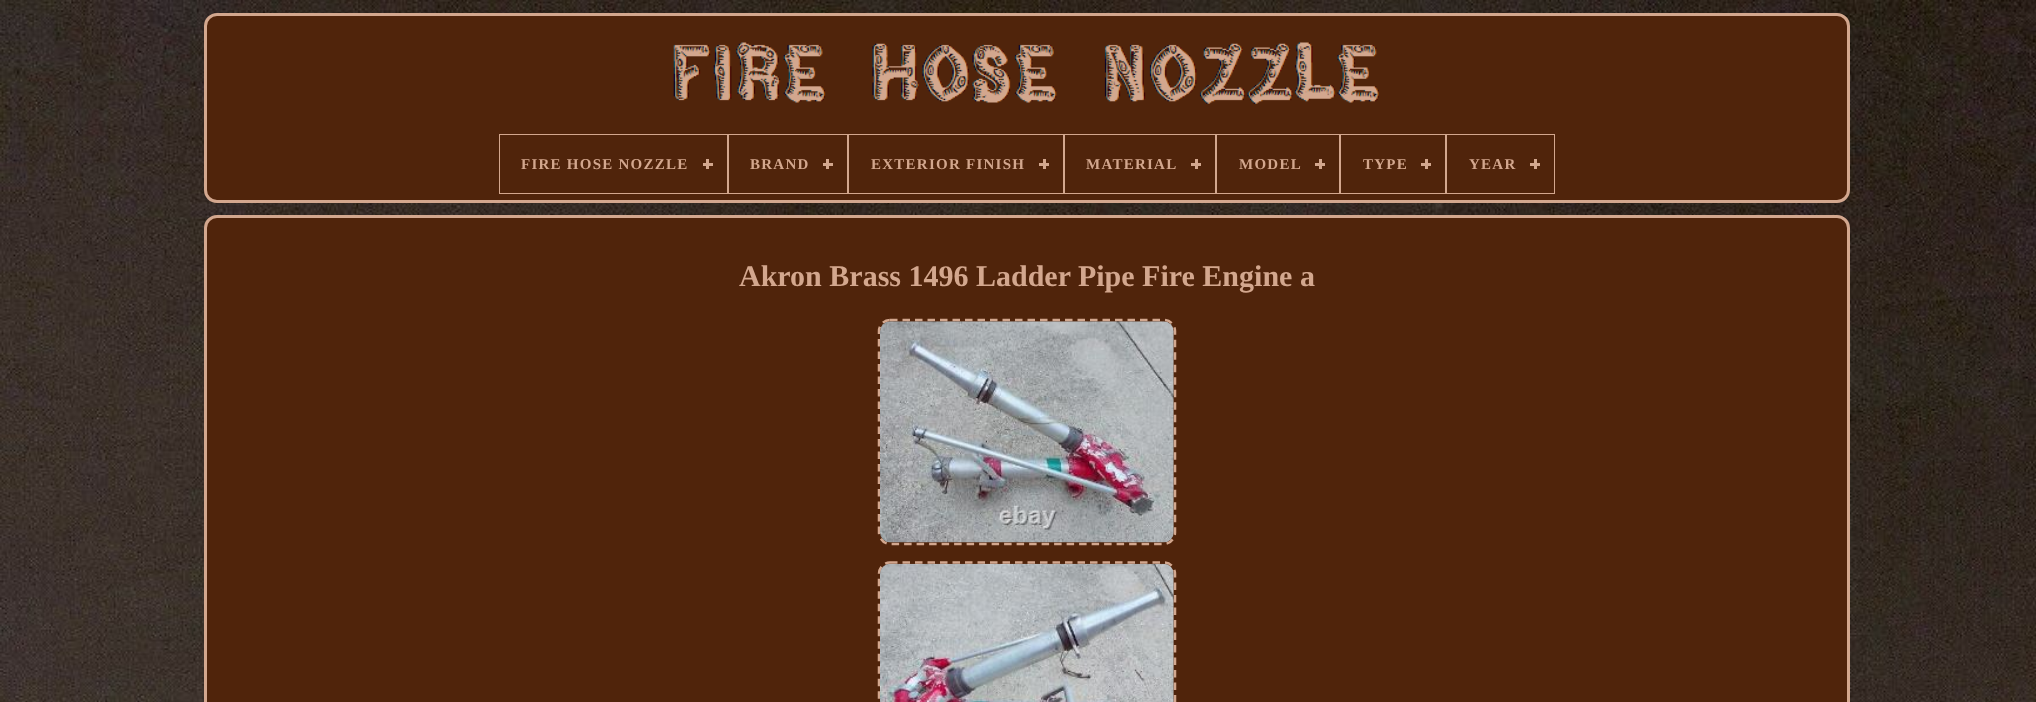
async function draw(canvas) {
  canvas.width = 2036
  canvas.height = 702
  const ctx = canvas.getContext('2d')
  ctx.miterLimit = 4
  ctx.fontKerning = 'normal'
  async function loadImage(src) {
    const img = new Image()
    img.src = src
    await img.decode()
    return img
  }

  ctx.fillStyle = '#fff'
  ctx.fillRect(0, 0, 2036, 702)
  ctx.drawImage(await loadImage('image0.png'), 0, 0, 2036, 702)
  ctx.fillStyle = '#50240b'
  ctx.beginPath()
  ctx.roundRect(205.5, 14.5, 1643, 187, 11.5)
  ctx.fill()
  ctx.strokeStyle = '#d3a78e'
  ctx.lineWidth = 3
  ctx.stroke()
  ctx.drawImage(await loadImage('image1.png'), 673, 42, 706, 62)
  ctx.lineWidth = 1
  ctx.strokeRect(499.5, 134.5, 228, 59)
  ctx.letterSpacing = '1.25px'
  ctx.font = 'bold 15px Liberation Serif'
  ctx.fillStyle = '#d3a78e'
  ctx.fillText('FIRE HOSE NOZZLE', 521, 169)
  ctx.fillRect(706, 159, 3, 10)
  ctx.fillRect(703, 163, 10, 3)
  ctx.strokeRect(728.5, 134.5, 119, 59)
  ctx.fillText('BRAND', 750, 169)
  ctx.fillRect(826, 159, 3, 10)
  ctx.fillRect(823, 163, 10, 3)
  ctx.strokeRect(848.5, 134.5, 215, 59)
  ctx.fillText('EXTERIOR FINISH', 871, 169)
  ctx.fillRect(1043, 159, 3, 10)
  ctx.fillRect(1039, 163, 10, 3)
  ctx.strokeRect(1064.5, 134.5, 151, 59)
  ctx.fillText('MATERIAL', 1086, 169)
  ctx.fillRect(1195, 159, 3, 10)
  ctx.fillRect(1191, 163, 10, 3)
  ctx.strokeRect(1216.5, 134.5, 123, 59)
  ctx.fillText('MODEL', 1239, 169)
  ctx.fillRect(1319, 159, 3, 10)
  ctx.fillRect(1315, 163, 10, 3)
  ctx.strokeRect(1340.5, 134.5, 105, 59)
  ctx.fillText('TYPE', 1363, 169)
  ctx.fillRect(1425, 159, 3, 10)
  ctx.fillRect(1421, 163, 10, 3)
  ctx.strokeRect(1446.5, 134.5, 108, 59)
  ctx.fillText('YEAR', 1469, 169)
  ctx.fillRect(1534, 159, 3, 10)
  ctx.fillRect(1530, 163, 10, 3)
  ctx.fillStyle = '#50240b'
  ctx.beginPath()
  ctx.roundRect(205.5, 216.5, 1643, 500, 11.5)
  ctx.fill()
  ctx.lineWidth = 3
  ctx.stroke()
  ctx.letterSpacing = '0px'
  ctx.font = 'bold 30px Liberation Serif'
  ctx.fillStyle = '#d3a78e'
  ctx.fillText('Akron Brass 1496 Ladder Pipe Fire Engine a', 739, 286)
  ctx.beginPath()
  ctx.moveTo(890, 320)
  ctx.lineTo(1164, 320)
  ctx.bezierCurveTo(1170, 320, 1175, 325, 1175, 331)
  ctx.lineTo(1175, 532.5)
  ctx.bezierCurveTo(1175, 538.5, 1170, 544, 1164, 544)
  ctx.lineTo(890, 544)
  ctx.bezierCurveTo(884, 544, 879, 538.5, 879, 532.5)
  ctx.lineTo(879, 331)
  ctx.bezierCurveTo(879, 325, 884, 320, 890, 320)
  ctx.closePath()
  ctx.lineWidth = 2.5
  ctx.setLineDash([7.5, 5])
  ctx.stroke()
  ctx.drawImage(await loadImage('image2.png'), 880, 321, 294, 222)
  ctx.beginPath()
  ctx.moveTo(890, 562.5)
  ctx.lineTo(1164, 562.5)
  ctx.bezierCurveTo(1170, 562.5, 1175, 567.5, 1175, 574)
  ctx.lineTo(1175, 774)
  ctx.bezierCurveTo(1175, 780, 1170, 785, 1164, 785)
  ctx.lineTo(890, 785)
  ctx.bezierCurveTo(884, 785, 879, 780, 879, 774)
  ctx.lineTo(879, 574)
  ctx.bezierCurveTo(879, 567.5, 884, 562.5, 890, 562.5)
  ctx.closePath()
  ctx.stroke()
  ctx.drawImage(await loadImage('image3.png'), 880, 563, 294, 139)
}

draw(document.querySelector('canvas'))
